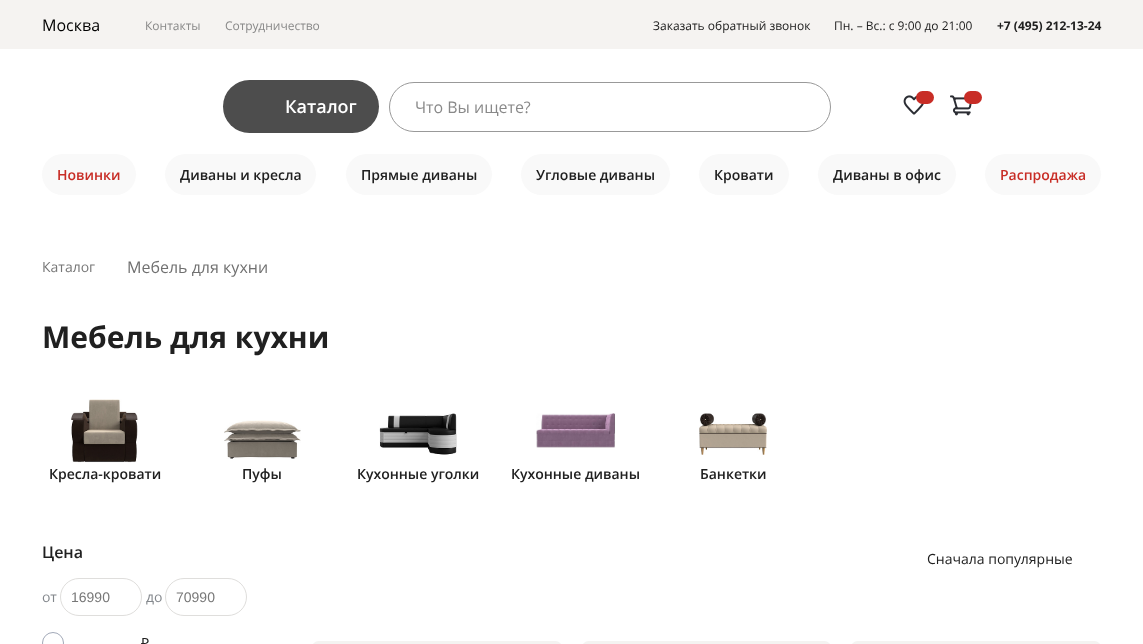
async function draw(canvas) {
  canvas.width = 1143
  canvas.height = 644
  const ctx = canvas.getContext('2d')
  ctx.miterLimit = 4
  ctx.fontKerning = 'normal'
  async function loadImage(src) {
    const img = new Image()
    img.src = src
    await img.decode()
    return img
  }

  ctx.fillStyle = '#fff'
  ctx.fillRect(0, 0, 1143, 644)
  ctx.fillStyle = '#f5f3f1'
  ctx.fillRect(0, 0, 1143, 49)
  ctx.font = '16px Open Sans'
  ctx.fillStyle = '#000'
  ctx.fillText('Москва', 42, 31)
  ctx.font = '12px Open Sans'
  ctx.fillStyle = '#898989'
  ctx.fillText('Контакты', 145, 30)
  ctx.fillText('Сотрудничество', 225, 30)
  ctx.fillStyle = '#202020'
  ctx.fillText('Заказать обратный звонок', 653, 30)
  ctx.fillText('Пн. – Вс.: с 9:00 до 21:00', 834, 30)
  ctx.font = 'bold 12px Open Sans'
  ctx.fillText('+7 (495) 212-13-24', 997, 30)
  ctx.fillStyle = '#4d4d4d'
  ctx.beginPath()
  ctx.roundRect(223, 80, 156, 53, 26.5)
  ctx.fill()
  ctx.font = '600 18px Open Sans'
  ctx.fillStyle = '#fff'
  ctx.fillText('Каталог', 285, 113)
  ctx.beginPath()
  ctx.roundRect(389.5, 82.5, 441, 49, 24.5)
  ctx.strokeStyle = '#999'
  ctx.stroke()
  ctx.font = '16px Open Sans'
  ctx.fillStyle = '#898989'
  ctx.fillText('Что Вы ищете?', 415, 113)
  ctx.drawImage(await loadImage('image0.png'), 903, 95, 21, 20)
  ctx.fillStyle = '#c82d26'
  ctx.beginPath()
  ctx.roundRect(916, 91, 18, 13, 6.5)
  ctx.fill()
  ctx.drawImage(await loadImage('image1.png'), 950, 95, 22, 21)
  ctx.beginPath()
  ctx.roundRect(964, 91, 18, 13, 6.5)
  ctx.fill()
  ctx.fillStyle = '#f9f9f9'
  ctx.beginPath()
  ctx.roundRect(42, 154, 94, 41, 20.5)
  ctx.fill()
  ctx.font = '600 14px Open Sans'
  ctx.fillStyle = '#c82d26'
  ctx.fillText('Новинки', 57, 180)
  ctx.fillStyle = '#f9f9f9'
  ctx.beginPath()
  ctx.roundRect(165, 154, 151, 41, 20.5)
  ctx.fill()
  ctx.fillStyle = '#202020'
  ctx.fillText('Диваны и кресла', 180, 180)
  ctx.fillStyle = '#f9f9f9'
  ctx.beginPath()
  ctx.roundRect(346, 154, 146, 41, 20.5)
  ctx.fill()
  ctx.fillStyle = '#202020'
  ctx.fillText('Прямые диваны', 361, 180)
  ctx.fillStyle = '#f9f9f9'
  ctx.beginPath()
  ctx.roundRect(521, 154, 149, 41, 20.5)
  ctx.fill()
  ctx.fillStyle = '#202020'
  ctx.fillText('Угловые диваны', 536, 180)
  ctx.fillStyle = '#f9f9f9'
  ctx.beginPath()
  ctx.roundRect(699, 154, 90, 41, 20.5)
  ctx.fill()
  ctx.fillStyle = '#202020'
  ctx.fillText('Кровати', 714, 180)
  ctx.fillStyle = '#f9f9f9'
  ctx.beginPath()
  ctx.roundRect(818, 154, 138, 41, 20.5)
  ctx.fill()
  ctx.fillStyle = '#202020'
  ctx.fillText('Диваны в офис', 833, 180)
  ctx.fillStyle = '#f9f9f9'
  ctx.beginPath()
  ctx.roundRect(985, 154, 116, 41, 20.5)
  ctx.fill()
  ctx.fillStyle = '#c82d26'
  ctx.fillText('Распродажа', 1000, 180)
  ctx.font = '14px Open Sans'
  ctx.fillStyle = '#777'
  ctx.fillText('Каталог', 42, 272)
  ctx.font = '16px Open Sans'
  ctx.fillStyle = '#707070'
  ctx.fillText('Мебель для кухни', 127, 273)
  ctx.font = 'bold 30px Open Sans'
  ctx.fillStyle = '#202020'
  ctx.fillText('Мебель для кухни', 42, 348)
  ctx.drawImage(await loadImage('image2.png'), 71, 399, 67, 64)
  ctx.font = '600 14px Open Sans'
  ctx.fillText('Кресла-кровати', 49, 479)
  ctx.drawImage(await loadImage('image3.png'), 224, 420, 77, 39)
  ctx.fillText('Пуфы', 242, 479)
  ctx.drawImage(await loadImage('image4.png'), 379, 413, 78, 42)
  ctx.fillText('Кухонные уголки', 357, 479)
  ctx.drawImage(await loadImage('image5.png'), 536, 413, 80, 35)
  ctx.fillText('Кухонные диваны', 511, 479)
  ctx.drawImage(await loadImage('image6.png'), 699, 413, 68, 42)
  ctx.fillText('Банкетки', 700, 479)
  ctx.font = '600 16px Open Sans'
  ctx.fillText('Цена', 42, 558)
  ctx.font = '14px Open Sans'
  ctx.fillStyle = '#83878c'
  ctx.fillText('от', 42, 602)
  ctx.beginPath()
  ctx.roundRect(60.5, 578.5, 81, 37, 18.5)
  ctx.strokeStyle = '#dfdedc'
  ctx.stroke()
  ctx.font = '14px Liberation Sans'
  ctx.fillStyle = '#777'
  ctx.fillText('16990', 71, 602)
  ctx.font = '14px Open Sans'
  ctx.fillStyle = '#83878c'
  ctx.fillText('до', 146, 602)
  ctx.beginPath()
  ctx.roundRect(165.5, 578.5, 81, 37, 18.5)
  ctx.stroke()
  ctx.font = '14px Liberation Sans'
  ctx.fillStyle = '#777'
  ctx.fillText('70990', 176, 602)
  ctx.beginPath()
  ctx.arc(53, 643, 10.5, 0, 2 * Math.PI)
  ctx.strokeStyle = '#a2a9b8'
  ctx.stroke()
  ctx.font = '14px Noto Sans'
  ctx.fillStyle = '#202020'
  ctx.fillText('₽', 141, 648)
  ctx.font = '14px Open Sans'
  ctx.fillText('Сначала популярные', 927, 564)
  ctx.fillStyle = '#f4f3f1'
  ctx.beginPath()
  ctx.roundRect(312, 641, 250, 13, 10)
  ctx.fill()
  ctx.beginPath()
  ctx.roundRect(582, 641, 249, 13, 10)
  ctx.fill()
  ctx.beginPath()
  ctx.roundRect(851, 641, 250, 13, 10)
  ctx.fill()
}

draw(document.querySelector('canvas'))
